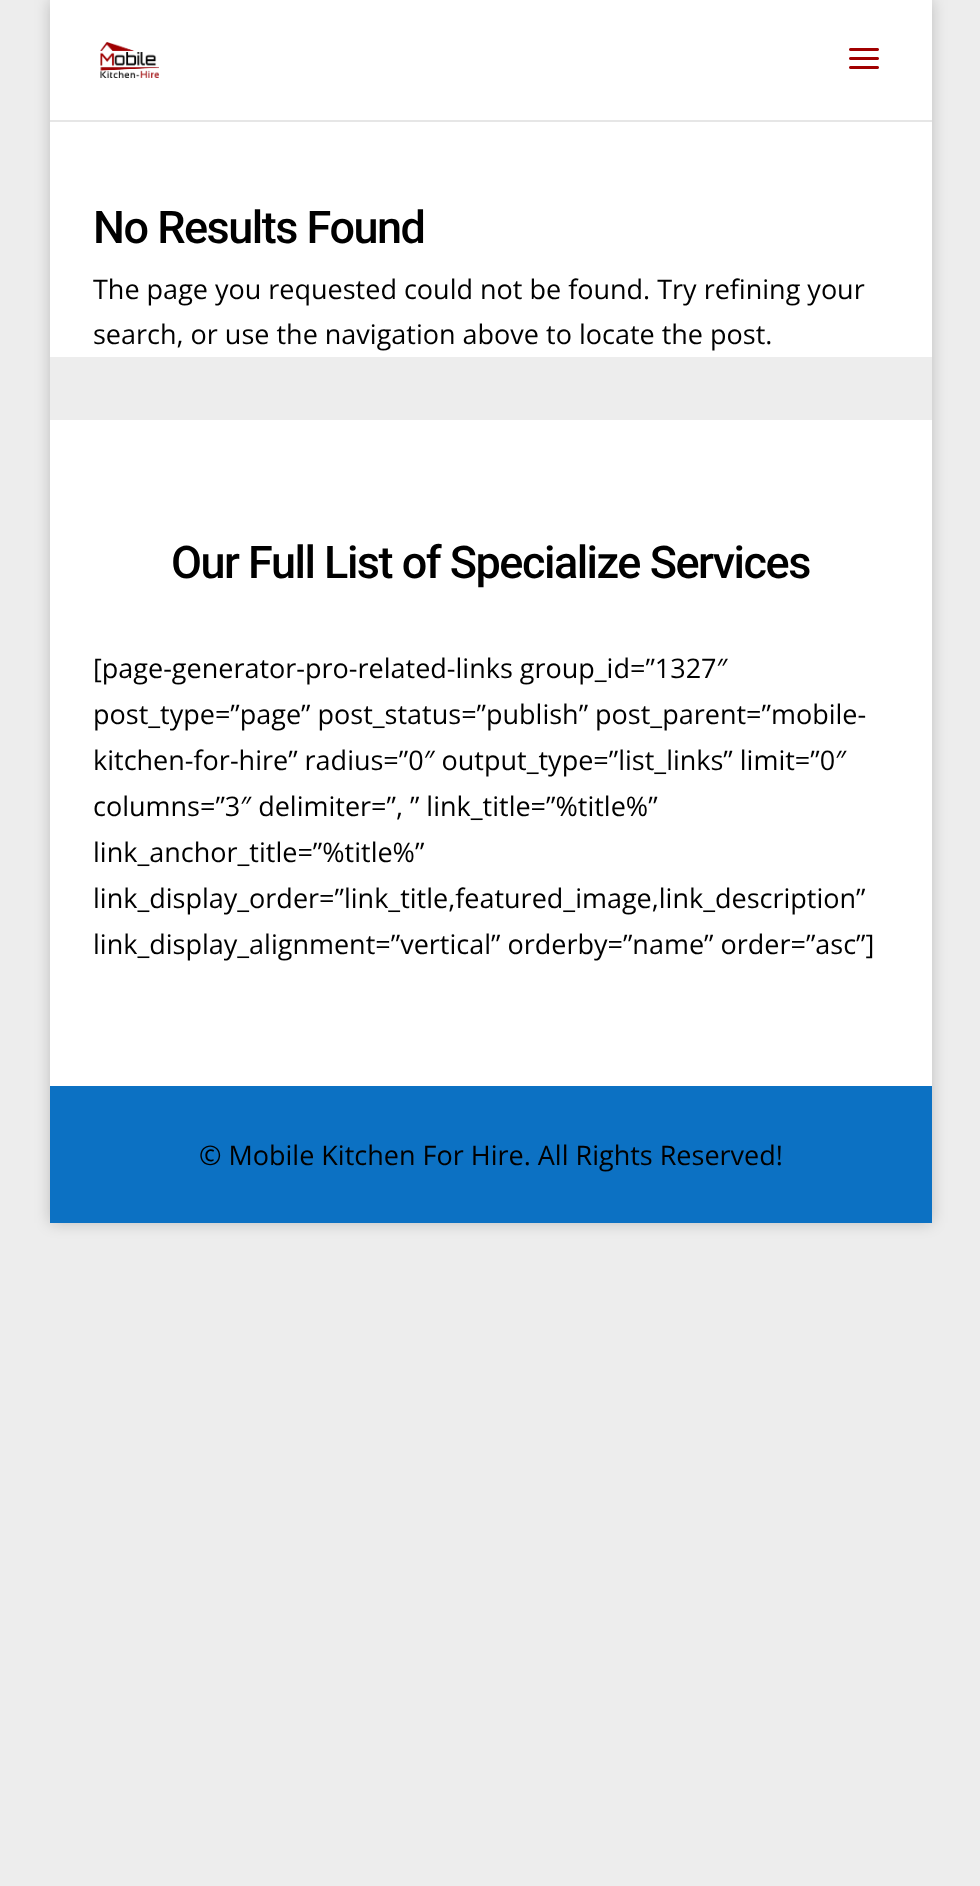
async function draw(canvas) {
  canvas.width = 980
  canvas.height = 1886
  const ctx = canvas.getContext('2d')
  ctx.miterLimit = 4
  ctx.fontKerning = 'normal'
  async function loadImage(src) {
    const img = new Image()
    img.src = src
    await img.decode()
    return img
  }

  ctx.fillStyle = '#ededed'
  ctx.fillRect(0, 0, 980, 1886)
  ctx.save()
  ctx.beginPath()
  ctx.moveTo(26, 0)
  ctx.lineTo(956, 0)
  ctx.lineTo(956, 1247)
  ctx.lineTo(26, 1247)
  ctx.closePath()
  ctx.moveTo(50, 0)
  ctx.lineTo(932, 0)
  ctx.lineTo(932, 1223)
  ctx.lineTo(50, 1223)
  ctx.closePath()
  ctx.clip('evenodd')
  ctx.fillStyle = '#00000033'
  ctx.filter = 'blur(7.5px)'
  ctx.beginPath()
  ctx.rect(50, 0, 882, 1223)
  ctx.fill()
  ctx.filter = 'none'
  ctx.restore()
  ctx.fillStyle = '#e6e6e6'
  ctx.beginPath()
  ctx.moveTo(50, 120)
  ctx.lineTo(50, 122)
  ctx.lineTo(932, 122)
  ctx.lineTo(932, 2)
  ctx.lineTo(932, 120)
  ctx.closePath()
  ctx.fill()
  ctx.fillStyle = '#fff'
  ctx.fillRect(50, 0, 882, 120)
  ctx.drawImage(await loadImage('image0.png'), 100, 42, 59, 36)
  ctx.drawImage(await loadImage('image1.png'), 849, 48, 30, 21)
  ctx.fillRect(50, 122, 882, 235)
  ctx.letterSpacing = '-1.5px'
  ctx.font = '500 45px Roboto'
  ctx.fillStyle = '#000'
  ctx.fillText('No Results Found', 93, 243)
  ctx.letterSpacing = '0px'
  ctx.font = '27px Open Sans'
  ctx.fillText('The page you requested could not be found. Try refining your', 93, 299)
  ctx.fillText('search, or use the navigation above to locate the post.', 93, 344)
  ctx.fillStyle = '#fff'
  ctx.fillRect(50, 420, 882, 666)
  ctx.letterSpacing = '-1.5px'
  ctx.font = '500 45px Roboto'
  ctx.fillStyle = '#000'
  ctx.fillText('Our Full List of Specialize Services', 171, 578)
  ctx.letterSpacing = '0px'
  ctx.font = '27px Open Sans'
  ctx.fillText('[page-generator-pro-related-links group_id=”1327″', 93, 678)
  ctx.fillText('post_type=”page” post_status=”publish” post_parent=”mobile-', 93, 724)
  ctx.fillText('kitchen-for-hire” radius=”0″ output_type=”list_links” limit=”0″', 93, 770)
  ctx.fillText('columns=”3″ delimiter=”, ” link_title=”%title%”', 93, 816)
  ctx.fillText('link_anchor_title=”%title%”', 93, 862)
  ctx.fillText('link_display_order=”link_title,featured_image,link_description”', 93, 908)
  ctx.fillText('link_display_alignment=”vertical” orderby=”name” order=”asc”]', 93, 954)
  ctx.fillStyle = '#0c71c3'
  ctx.fillRect(50, 1086, 882, 137)
  ctx.fillStyle = '#000'
  ctx.fillText('© Mobile Kitchen For Hire. All Rights Reserved!', 199, 1165)
}

draw(document.querySelector('canvas'))
